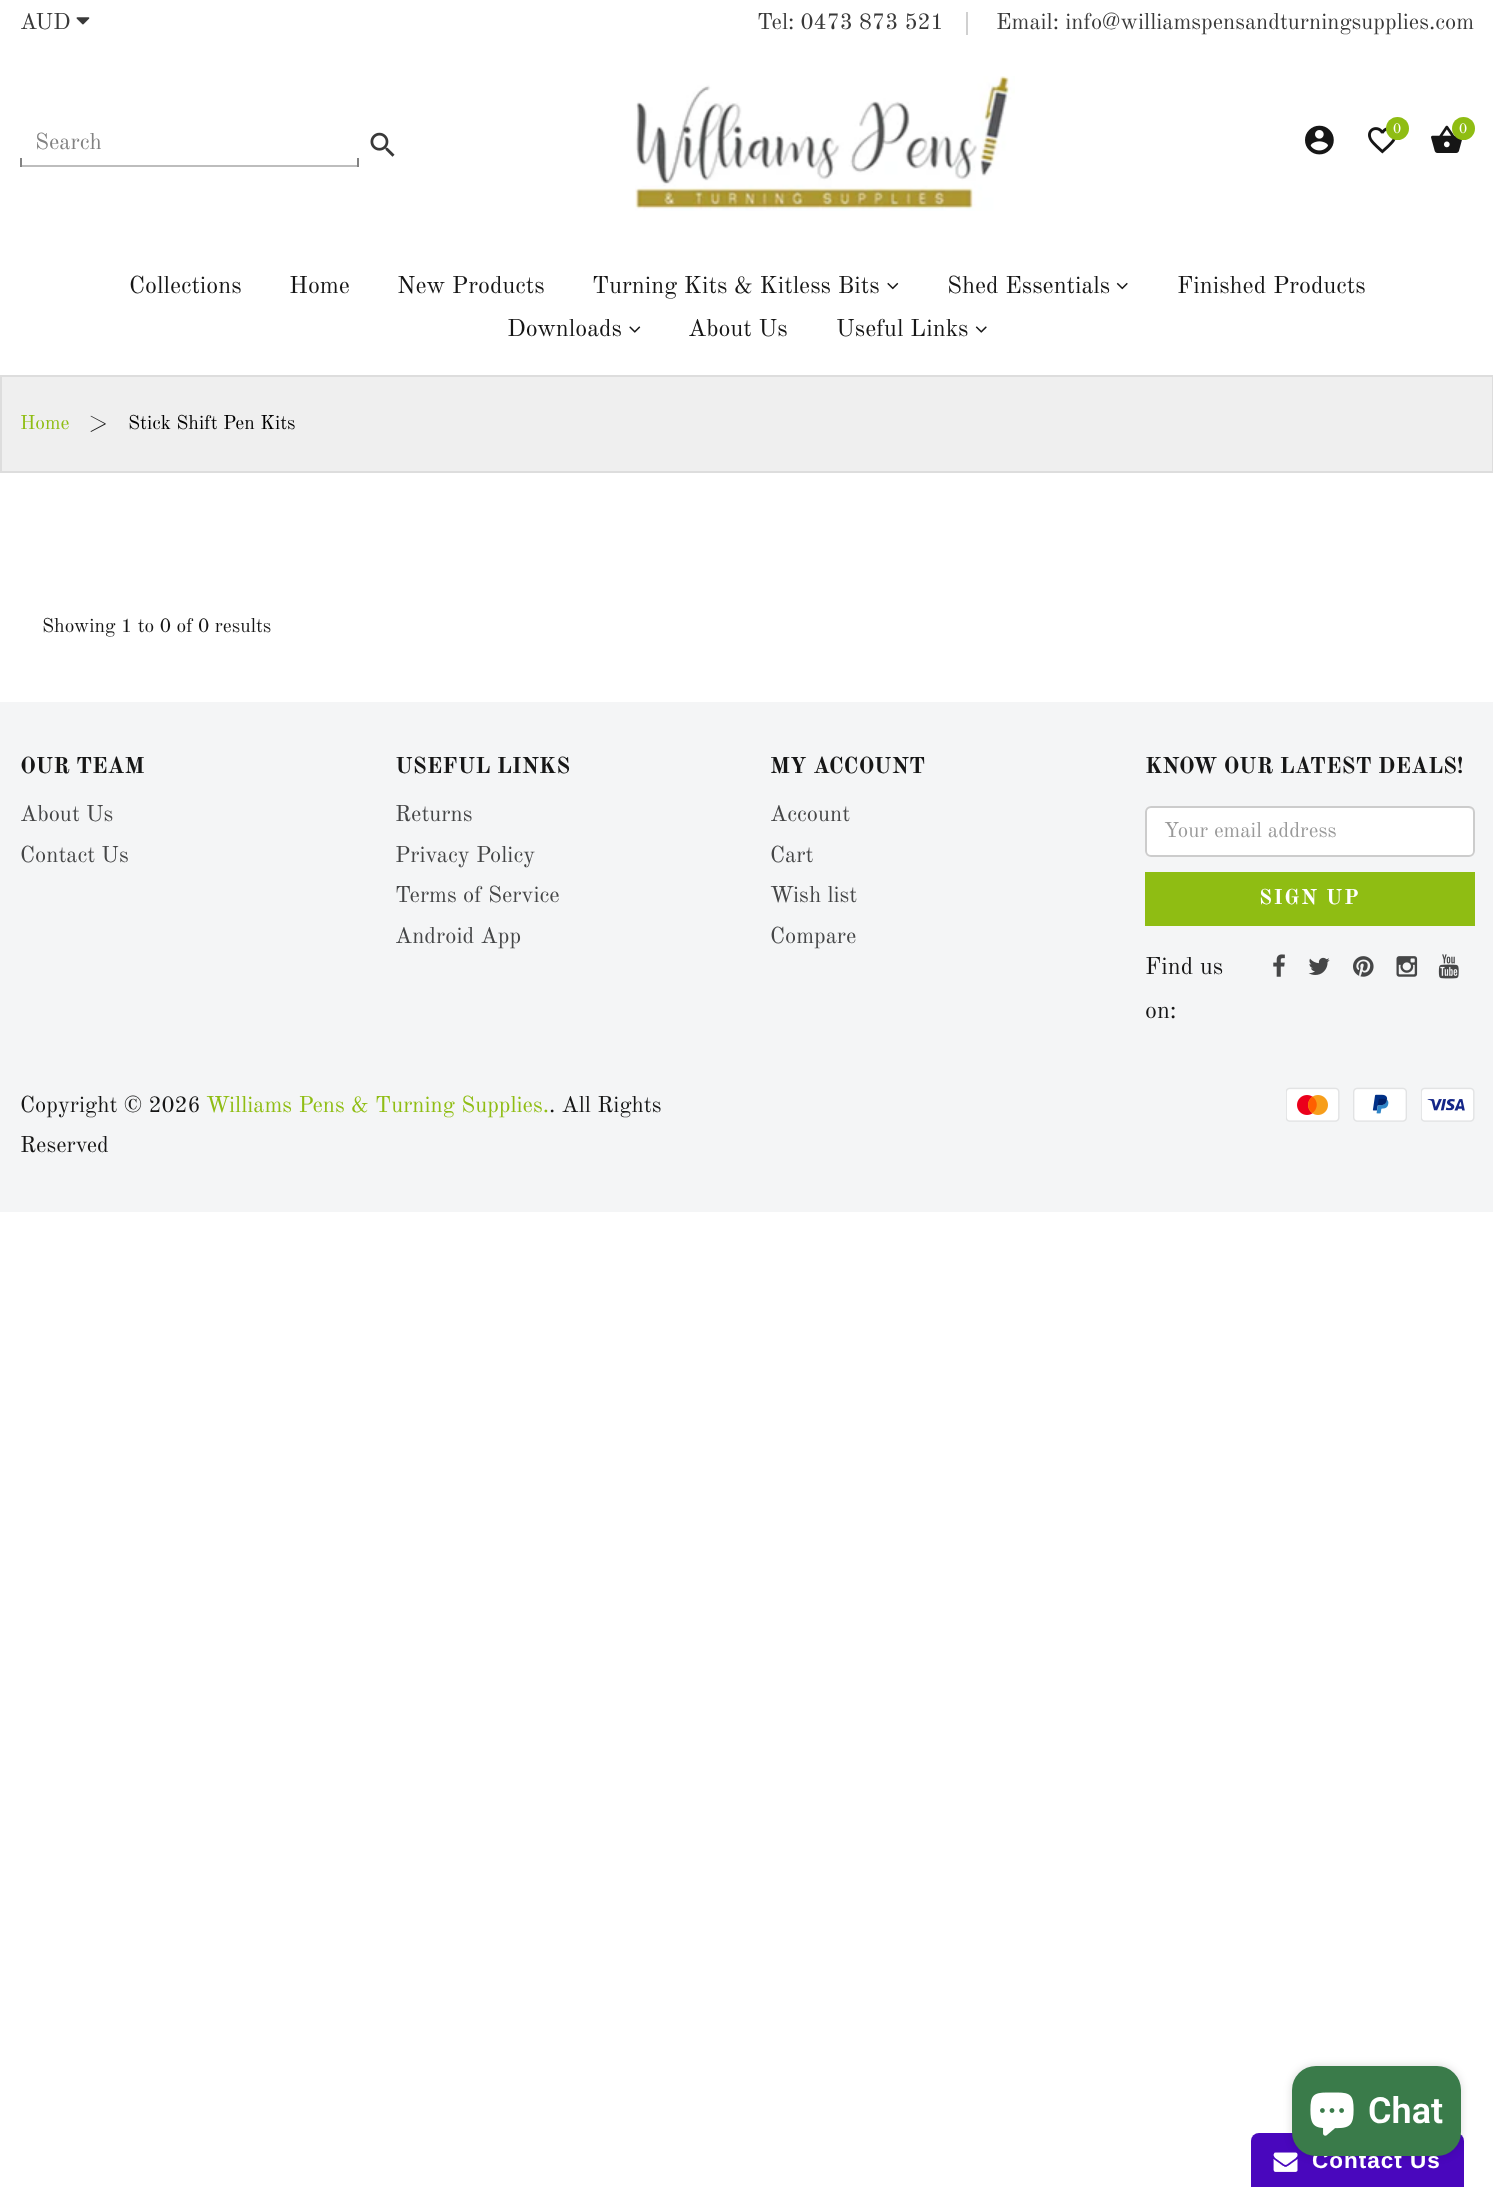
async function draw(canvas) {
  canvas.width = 1493
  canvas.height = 2187
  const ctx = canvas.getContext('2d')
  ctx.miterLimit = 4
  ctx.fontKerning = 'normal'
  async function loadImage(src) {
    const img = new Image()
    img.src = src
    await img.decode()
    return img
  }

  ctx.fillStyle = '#fff'
  ctx.fillRect(0, 0, 1493, 2187)
  ctx.font = '22.5px Old Standard TT'
  ctx.fillStyle = '#393939'
  ctx.fillText('AUD', 20, 29)
  ctx.drawImage(await loadImage('image0.png'), 76, 17, 14, 8)
  ctx.fillStyle = '#d0d0d0'
  ctx.fillRect(966, 12, 2, 23)
  ctx.fillStyle = '#393939'
  ctx.fillText('Tel: 0473 873 521', 757, 29)
  ctx.fillText('Email: info@williamspensandturningsupplies.com', 996, 29)
  ctx.drawImage(await loadImage('image1.png'), 635, 76, 380, 135)
  ctx.drawImage(await loadImage('image2.png'), 1305, 125, 29, 30)
  ctx.drawImage(await loadImage('image3.png'), 1368, 127, 28, 27)
  ctx.fillStyle = '#8fbd13'
  ctx.beginPath()
  ctx.arc(1397.5, 128.5, 11.5, 0, 2 * Math.PI)
  ctx.fill()
  ctx.font = '14px Old Standard TT'
  ctx.fillStyle = '#fff'
  ctx.fillText('0', 1393, 133)
  ctx.drawImage(await loadImage('image4.png'), 1431, 125, 32, 28)
  ctx.fillStyle = '#8fbd13'
  ctx.beginPath()
  ctx.arc(1463.5, 128.5, 11.5, 0, 2 * Math.PI)
  ctx.fill()
  ctx.fillStyle = '#fff'
  ctx.fillText('0', 1459, 133)
  ctx.fillStyle = '#bdbdbd'
  ctx.fillRect(20, 165, 339, 2)
  ctx.font = '22.5px Old Standard TT'
  ctx.fillStyle = '#828282'
  ctx.fillText('Search', 35, 149)
  ctx.drawImage(await loadImage('image5.png'), 370, 132, 25, 25)
  ctx.fillRect(20, 158, 2, 9)
  ctx.fillRect(357, 158, 2, 9)
  ctx.font = '24px Old Standard TT'
  ctx.fillStyle = '#161616'
  ctx.fillText('Collections', 129, 293)
  ctx.fillText('Home', 289, 293)
  ctx.fillText('New Products', 397, 293)
  ctx.fillText('Turning Kits & Kitless Bits', 592, 293)
  ctx.drawImage(await loadImage('image6.png'), 887, 282, 12, 8)
  ctx.fillText('Shed Essentials', 947, 293)
  ctx.drawImage(await loadImage('image7.png'), 1116, 282, 12, 8)
  ctx.fillText('Finished Products', 1177, 293)
  ctx.fillText('Downloads', 507, 336)
  ctx.drawImage(await loadImage('image8.png'), 629, 326, 12, 7)
  ctx.fillText('About Us', 688, 336)
  ctx.fillText('Useful Links', 836, 336)
  ctx.drawImage(await loadImage('image9.png'), 975, 326, 12, 7)
  ctx.fillStyle = '#efefef'
  ctx.beginPath()
  ctx.rect(1, 376, 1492, 96)
  ctx.fill()
  ctx.strokeStyle = '#ddd'
  ctx.lineWidth = 2
  ctx.stroke()
  ctx.font = '19.5px Old Standard TT'
  ctx.fillStyle = '#8fbd13'
  ctx.fillText('Home', 20, 429)
  ctx.fillStyle = '#161616'
  ctx.fillText('>', 89, 429)
  ctx.fillStyle = '#000'
  ctx.fillText('Stick Shift Pen Kits', 128, 429)
  ctx.fillStyle = '#161616'
  ctx.fillText('Showing 1 to 0 of 0 results', 42, 632)
  ctx.fillStyle = '#f4f5f6'
  ctx.fillRect(0, 702, 1493, 510)
  ctx.font = 'bold 22.5px Old Standard TT'
  ctx.fillStyle = '#161616'
  ctx.fillText('OUR TEAM', 20, 773)
  ctx.font = '22.5px Old Standard TT'
  ctx.fillStyle = '#454647'
  ctx.fillText('About Us', 20, 821)
  ctx.fillText('Contact Us', 20, 862)
  ctx.font = 'bold 22.5px Old Standard TT'
  ctx.fillStyle = '#161616'
  ctx.fillText('USEFUL LINKS', 395, 773)
  ctx.font = '22.5px Old Standard TT'
  ctx.fillStyle = '#454647'
  ctx.fillText('Returns', 395, 821)
  ctx.fillText('Privacy Policy', 395, 862)
  ctx.fillText('Terms of Service', 395, 902)
  ctx.fillText('Android App', 395, 943)
  ctx.font = 'bold 22.5px Old Standard TT'
  ctx.fillStyle = '#161616'
  ctx.fillText('MY ACCOUNT', 770, 773)
  ctx.font = '22.5px Old Standard TT'
  ctx.fillStyle = '#454647'
  ctx.fillText('Account', 770, 821)
  ctx.fillText('Cart', 770, 862)
  ctx.fillText('Wish list', 770, 902)
  ctx.fillText('Compare', 770, 943)
  ctx.font = 'bold 22.5px Old Standard TT'
  ctx.fillStyle = '#161616'
  ctx.fillText('KNOW OUR LATEST DEALS!', 1145, 773)
  ctx.fillStyle = '#fff'
  ctx.beginPath()
  ctx.roundRect(1145, 806, 330, 51, 6)
  ctx.fill()
  ctx.fillStyle = '#ececec'
  ctx.beginPath()
  ctx.moveTo(1150, 808)
  ctx.lineTo(1468, 808)
  ctx.bezierCurveTo(1471, 808, 1473, 811, 1473, 813)
  ctx.bezierCurveTo(1473, 810, 1471, 807, 1468, 807)
  ctx.lineTo(1151, 807)
  ctx.bezierCurveTo(1148, 807, 1146, 810, 1146, 813)
  ctx.bezierCurveTo(1146, 811, 1148, 808, 1150, 808)
  ctx.closePath()
  ctx.fill()
  ctx.beginPath()
  ctx.roundRect(1146, 807, 328, 49, 5)
  ctx.strokeStyle = '#ccc'
  ctx.stroke()
  ctx.font = '21px Old Standard TT'
  ctx.fillStyle = '#999'
  ctx.fillText('Your email address', 1164, 837)
  ctx.fillStyle = '#8fbd13'
  ctx.fillRect(1145, 872, 330, 54)
  ctx.letterSpacing = '1.5px'
  ctx.font = 'bold 21px Old Standard TT'
  ctx.fillStyle = '#fff'
  ctx.fillText('SIGN UP', 1259, 904)
  ctx.letterSpacing = '0px'
  ctx.font = '24px Old Standard TT'
  ctx.fillStyle = '#161616'
  ctx.fillText('Find us', 1145, 974)
  ctx.fillText('on:', 1145, 1018)
  ctx.drawImage(await loadImage('image10.png'), 1273, 954, 12, 23)
  ctx.drawImage(await loadImage('image11.png'), 1308, 957, 22, 18)
  ctx.drawImage(await loadImage('image12.png'), 1353, 956, 21, 21)
  ctx.drawImage(await loadImage('image13.png'), 1396, 956, 22, 21)
  ctx.drawImage(await loadImage('image14.png'), 1438, 954, 21, 25)
  ctx.font = '22.5px Old Standard TT'
  ctx.fillText('Copyright © 2026', 20, 1112)
  ctx.fillStyle = '#8fbd13'
  ctx.fillText('Williams Pens & Turning Supplies.', 206, 1112)
  ctx.fillStyle = '#161616'
  ctx.fillText('. All Rights', 549, 1112)
  ctx.fillText('Reserved', 20, 1152)
  ctx.drawImage(await loadImage('image15.png'), 1286, 1087, 54, 35)
  ctx.drawImage(await loadImage('image16.png'), 1353, 1087, 54, 35)
  ctx.drawImage(await loadImage('image17.png'), 1421, 1087, 54, 35)
  ctx.fillStyle = '#4907bd'
  ctx.beginPath()
  ctx.roundRect(1251, 2133, 213, 54, [8, 8, 0, 0])
  ctx.fill()
  ctx.drawImage(await loadImage('image19.png'), 1273, 2152, 25, 20)
  ctx.fillStyle = '#00000026'
  ctx.filter = 'blur(4px)'
  ctx.beginPath()
  ctx.roundRect(1292, 2066, 169, 90, 24)
  ctx.fill()
  ctx.filter = 'none'
  ctx.letterSpacing = '1px'
  ctx.font = 'bold 22.5px Liberation Sans'
  ctx.fillStyle = '#fff'
  ctx.fillText('Contact Us', 1312, 2168)
  ctx.fillStyle = '#3a7b4a'
  ctx.beginPath()
  ctx.roundRect(1292, 2066, 169, 90, 24)
  ctx.fill()
  ctx.drawImage(await loadImage('image18.png'), 1310, 2092, 44, 44)
  ctx.letterSpacing = '0px'
  ctx.font = '600 36px Roboto'
  ctx.fillStyle = '#fff'
  ctx.fillText('Chat', 1368, 2123)
}

draw(document.querySelector('canvas'))
